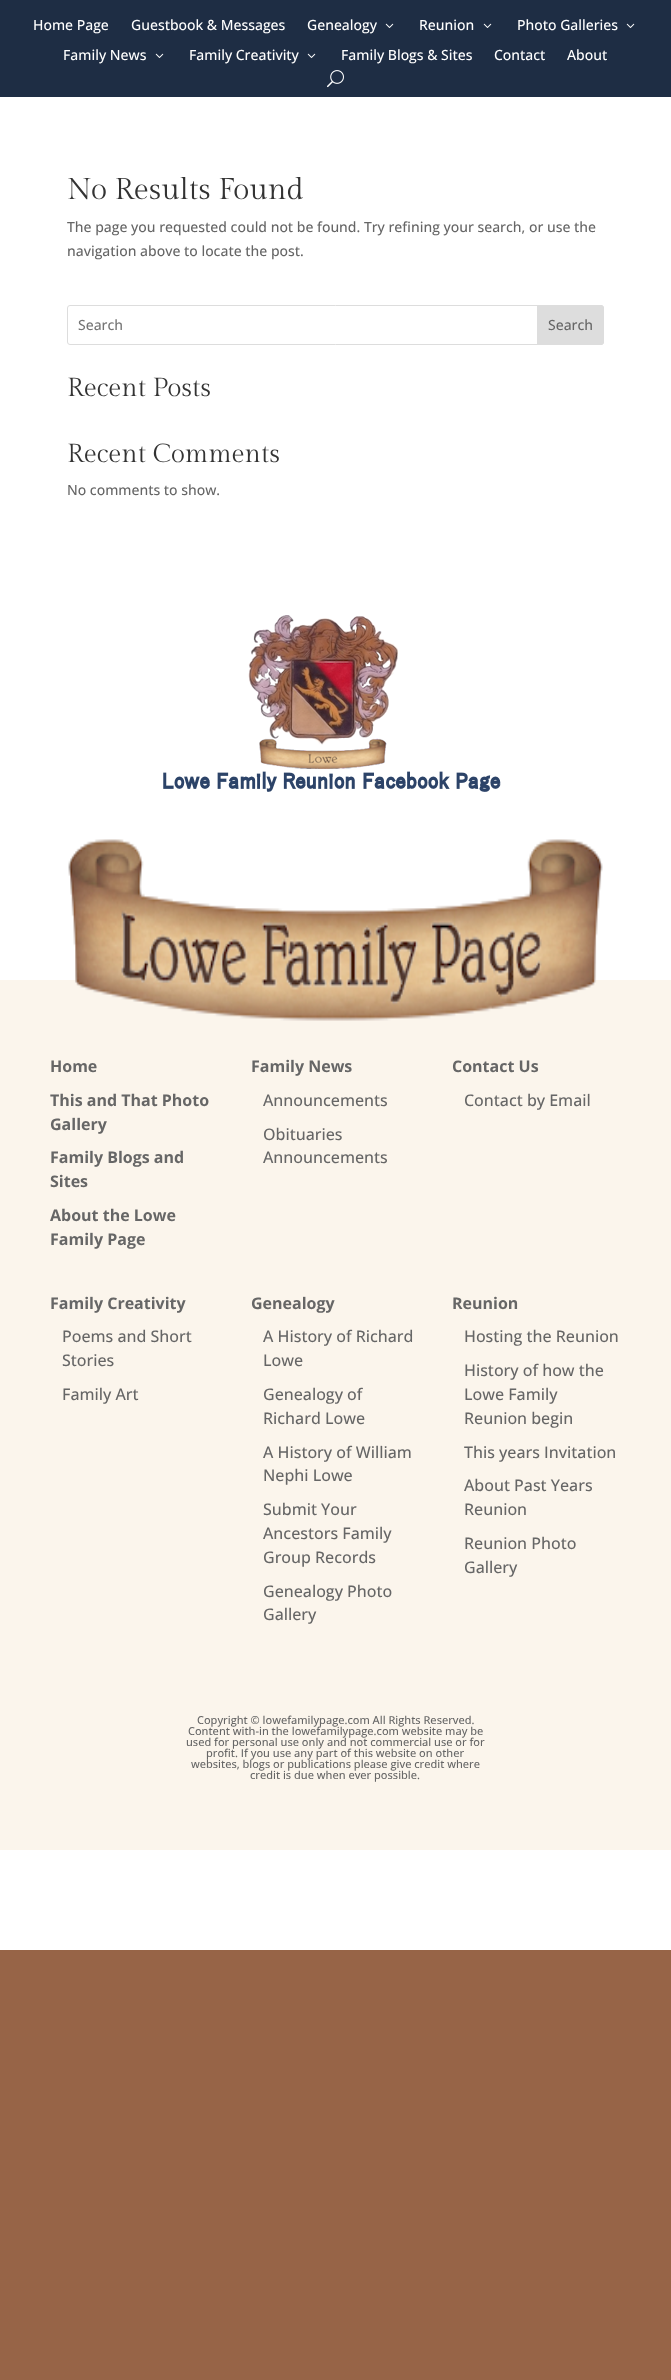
async function draw(canvas) {
  canvas.width = 671
  canvas.height = 2380
  const ctx = canvas.getContext('2d')
  ctx.miterLimit = 4
  ctx.fontKerning = 'normal'
  async function loadImage(src) {
    const img = new Image()
    img.src = src
    await img.decode()
    return img
  }

  ctx.fillStyle = '#976447'
  ctx.fillRect(0, 0, 671, 2380)
  ctx.fillStyle = '#1e2d44'
  ctx.fillRect(0, 0, 671, 97)
  ctx.font = '500 14px Open Sans'
  ctx.fillStyle = '#fff'
  ctx.fillText('Home Page', 33, 30)
  ctx.fillText('Guestbook & Messages', 131, 30)
  ctx.fillText('Genealogy', 307, 30)
  ctx.drawImage(await loadImage('image0.png'), 385, 23, 9, 5)
  ctx.fillText('Reunion', 419, 30)
  ctx.drawImage(await loadImage('image0.png'), 483, 23, 9, 5)
  ctx.fillText('Photo Galleries', 517, 30)
  ctx.drawImage(await loadImage('image0.png'), 626, 23, 9, 5)
  ctx.fillText('Family News', 63, 60)
  ctx.drawImage(await loadImage('image0.png'), 155, 53, 9, 5)
  ctx.fillText('Family Creativity', 189, 60)
  ctx.drawImage(await loadImage('image0.png'), 307, 53, 9, 5)
  ctx.fillText('Family Blogs & Sites', 341, 60)
  ctx.fillText('Contact', 494, 60)
  ctx.fillText('About', 567, 60)
  ctx.drawImage(await loadImage('image1.png'), 327, 70, 17, 18)
  ctx.fillRect(0, 97, 671, 883)
  ctx.font = '30px Gilda Display'
  ctx.fillStyle = '#333'
  ctx.fillText('No Results Found', 67, 199)
  ctx.font = '500 14px Open Sans'
  ctx.fillStyle = '#666'
  ctx.fillText('The page you requested could not be found. Try refining your search, or use the', 67, 232)
  ctx.fillText('navigation above to locate the post.', 67, 256)
  ctx.beginPath()
  ctx.roundRect(67.5, 305.5, 536, 39, 2.5)
  ctx.strokeStyle = '#ddd'
  ctx.stroke()
  ctx.fillStyle = '#757575'
  ctx.fillText('Search', 78, 330)
  ctx.fillStyle = '#ddd'
  ctx.beginPath()
  ctx.roundRect(537.5, 305.5, 66, 39, [0, 2.5, 2.5, 0])
  ctx.fill()
  ctx.stroke()
  ctx.fillStyle = '#666'
  ctx.fillText('Search', 548, 330)
  ctx.font = '26px Gilda Display'
  ctx.fillStyle = '#333'
  ctx.fillText('Recent Posts', 67, 396)
  ctx.fillText('Recent Comments', 67, 462)
  ctx.font = '500 14px Open Sans'
  ctx.fillStyle = '#666'
  ctx.fillText('No comments to show.', 67, 495)
  ctx.drawImage(await loadImage('image2.png'), 163, 615, 338, 177)
  ctx.fillStyle = '#fbf5ec'
  ctx.fillRect(0, 980, 671, 870)
  ctx.drawImage(await loadImage('image3.png'), 68, 839, 535, 182)
  ctx.font = 'bold 16px Open Sans'
  ctx.fillStyle = '#666'
  ctx.fillText('Home', 50, 1072)
  ctx.fillText('This and That Photo', 50, 1106)
  ctx.fillText('Gallery', 50, 1130)
  ctx.fillText('Family Blogs and', 50, 1163)
  ctx.fillText('Sites', 50, 1187)
  ctx.fillText('About the Lowe', 50, 1221)
  ctx.fillText('Family Page', 50, 1245)
  ctx.fillText('Family News', 251, 1072)
  ctx.font = '500 16px Open Sans'
  ctx.fillText('Announcements', 263, 1106)
  ctx.fillText('Obituaries', 263, 1140)
  ctx.fillText('Announcements', 263, 1163)
  ctx.font = 'bold 16px Open Sans'
  ctx.fillText('Contact Us', 452, 1072)
  ctx.font = '500 16px Open Sans'
  ctx.fillText('Contact by Email', 464, 1106)
  ctx.font = 'bold 16px Open Sans'
  ctx.fillText('Family Creativity', 50, 1309)
  ctx.font = '500 16px Open Sans'
  ctx.fillText('Poems and Short', 62, 1342)
  ctx.fillText('Stories', 62, 1366)
  ctx.fillText('Family Art', 62, 1400)
  ctx.font = 'bold 16px Open Sans'
  ctx.fillText('Genealogy', 251, 1309)
  ctx.font = '500 16px Open Sans'
  ctx.fillText('A History of Richard', 263, 1342)
  ctx.fillText('Lowe', 263, 1366)
  ctx.fillText('Genealogy of', 263, 1400)
  ctx.fillText('Richard Lowe', 263, 1424)
  ctx.fillText('A History of William', 263, 1458)
  ctx.fillText('Nephi Lowe', 263, 1481)
  ctx.fillText('Submit Your', 263, 1515)
  ctx.fillText('Ancestors Family', 263, 1539)
  ctx.fillText('Group Records', 263, 1563)
  ctx.fillText('Genealogy Photo', 263, 1597)
  ctx.fillText('Gallery', 263, 1620)
  ctx.font = 'bold 16px Open Sans'
  ctx.fillText('Reunion', 452, 1309)
  ctx.font = '500 16px Open Sans'
  ctx.fillText('Hosting the Reunion', 464, 1342)
  ctx.fillText('History of how the', 464, 1376)
  ctx.fillText('Lowe Family', 464, 1400)
  ctx.fillText('Reunion begin', 464, 1424)
  ctx.fillText('This years Invitation', 464, 1458)
  ctx.fillText('About Past Years', 464, 1491)
  ctx.fillText('Reunion', 464, 1515)
  ctx.fillText('Reunion Photo', 464, 1549)
  ctx.fillText('Gallery', 464, 1573)
  ctx.font = '500 11px Open Sans'
  ctx.fillText('Copyright © lowefamilypage.com All Rights Reserved.', 197, 1724)
  ctx.fillText('Content with-in the lowefamilypage.com website may be', 188, 1735)
  ctx.fillText('used for personal use only and not commercial use or for', 186, 1746)
  ctx.fillText('profit. If you use any part of this website on other', 206, 1757)
  ctx.fillText('websites, blogs or publications please give credit where', 191, 1768)
  ctx.fillText('credit is due when ever possible.', 250, 1779)
  ctx.fillStyle = '#fff'
  ctx.fillRect(0, 1850, 671, 100)
}

draw(document.querySelector('canvas'))
